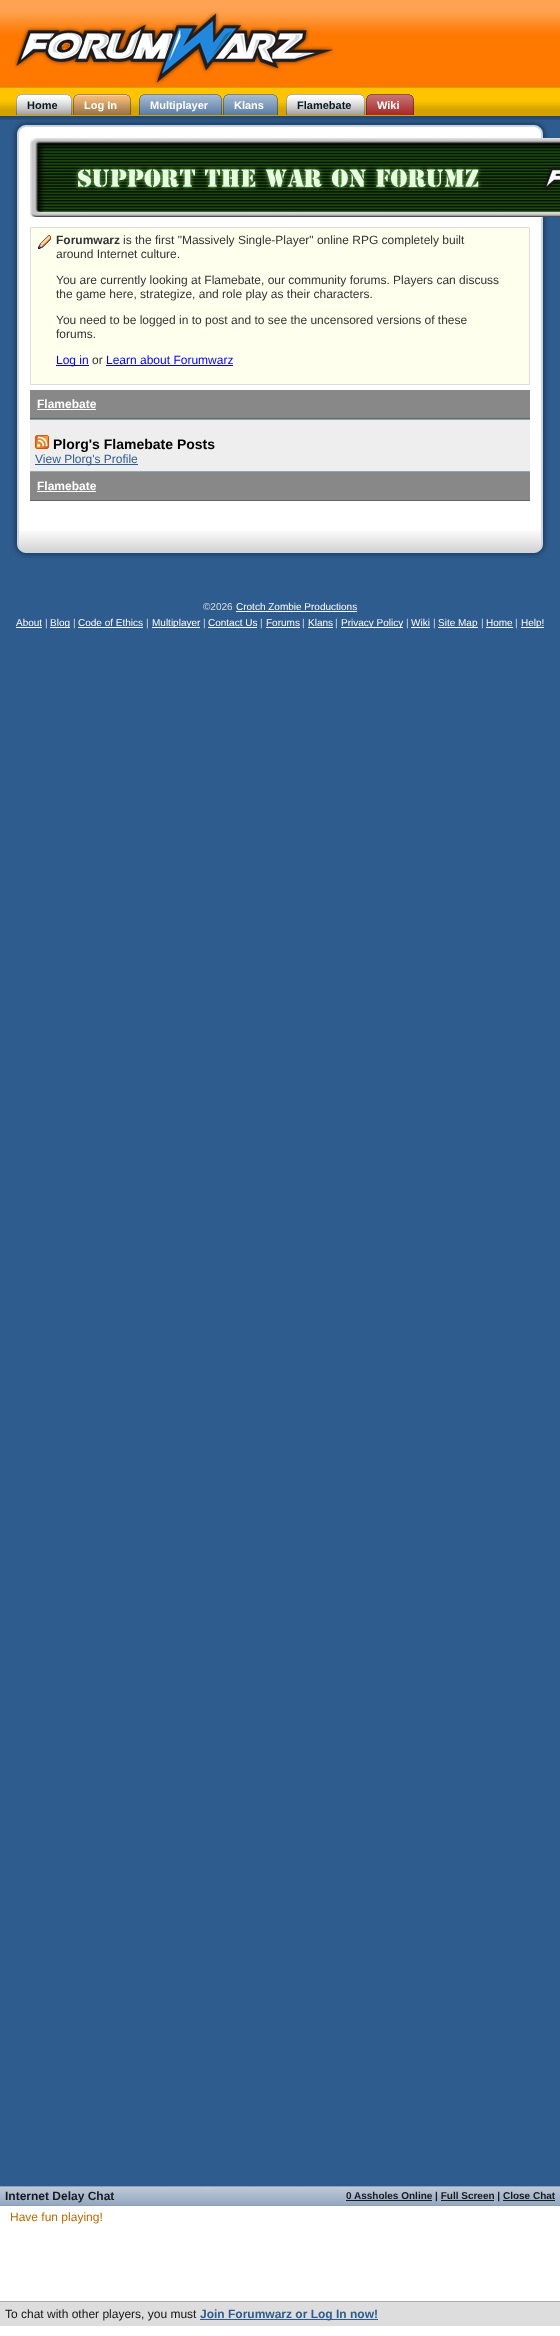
async function draw(canvas) {
  canvas.width = 560
  canvas.height = 2336
  const ctx = canvas.getContext('2d')
  ctx.miterLimit = 4
  ctx.fontKerning = 'normal'
  async function loadImage(src) {
    const img = new Image()
    img.src = src
    await img.decode()
    return img
  }

  ctx.fillStyle = '#2e5c8f'
  ctx.fillRect(0, 0, 560, 2336)
  ctx.drawImage(await loadImage('image0.png'), 0, 0, 560, 120)
  ctx.drawImage(await loadImage('image1.png'), 14, 11, 320, 74)
  ctx.drawImage(await loadImage('image2.png'), 16, 94, 6, 21)
  ctx.drawImage(await loadImage('image3.png'), 22, 94, 50, 21)
  ctx.font = 'bold 11px Liberation Sans'
  ctx.fillStyle = '#081a25'
  ctx.fillText('Home', 27, 109)
  ctx.drawImage(await loadImage('image4.png'), 73, 94, 6, 21)
  ctx.drawImage(await loadImage('image5.png'), 79, 94, 52, 21)
  ctx.fillStyle = '#fff'
  ctx.fillText('Log In', 84, 109)
  ctx.drawImage(await loadImage('image6.png'), 139, 94, 6, 21)
  ctx.drawImage(await loadImage('image7.png'), 145, 94, 78, 21)
  ctx.fillText('Multiplayer', 150, 109)
  ctx.drawImage(await loadImage('image6.png'), 223, 94, 6, 21)
  ctx.drawImage(await loadImage('image8.png'), 229, 94, 49, 21)
  ctx.fillText('Klans', 234, 109)
  ctx.drawImage(await loadImage('image2.png'), 286, 94, 6, 21)
  ctx.drawImage(await loadImage('image9.png'), 292, 94, 74, 21)
  ctx.fillStyle = '#081a25'
  ctx.fillText('Flamebate', 297, 109)
  ctx.drawImage(await loadImage('image10.png'), 366, 94, 6, 21)
  ctx.drawImage(await loadImage('image11.png'), 372, 94, 42, 21)
  ctx.fillStyle = '#fff'
  ctx.fillText('Wiki', 377, 109)
  ctx.fillRect(19, 133, 522, 398)
  ctx.drawImage(await loadImage('image12.png'), 10, 120, 9, 441)
  ctx.drawImage(await loadImage('image13.png'), 12, 120, 523, 13)
  ctx.drawImage(await loadImage('image14.png'), 535, 120, 15, 18)
  ctx.drawImage(await loadImage('image15.png'), 541, 217, 9, 304)
  ctx.drawImage(await loadImage('image16.png'), 30, 138, 530, 79)
  ctx.fillStyle = '#ffe'
  ctx.fillRect(31, 228, 498, 156)
  ctx.drawImage(await loadImage('image17.png'), 37, 234, 15, 16)
  ctx.strokeStyle = '#ddd'
  ctx.strokeRect(30.5, 227.5, 499, 157)
  ctx.font = 'bold 12px Liberation Sans'
  ctx.fillStyle = '#333'
  ctx.fillText('Forumwarz', 56, 244)
  ctx.font = '12px Liberation Sans'
  ctx.fillText('is the first "Massively Single-Player" online RPG completely built', 123, 244)
  ctx.fillText('around Internet culture.', 56, 258)
  ctx.fillText('You are currently looking at Flamebate, our community forums. Players can discuss', 56, 284)
  ctx.fillText('the game here, strategize, and role play as their characters.', 56, 298)
  ctx.fillText('You need to be logged in to post and to see the uncensored versions of these', 56, 324)
  ctx.fillText('forums.', 56, 338)
  ctx.fillStyle = '#00f'
  ctx.fillRect(56, 365, 33, 1)
  ctx.fillText('Log in', 56, 364)
  ctx.fillStyle = '#333'
  ctx.fillText('or', 92, 364)
  ctx.fillStyle = '#00f'
  ctx.fillText('Learn about Forumwarz', 106, 364)
  ctx.fillRect(106, 365, 127, 1)
  ctx.fillStyle = '#888'
  ctx.fillRect(30, 390, 500, 28)
  ctx.fillStyle = '#666'
  ctx.fillRect(30, 418, 500, 1)
  ctx.font = 'bold 12px Liberation Sans'
  ctx.fillStyle = '#fff'
  ctx.fillText('Flamebate', 37, 408)
  ctx.fillRect(37, 409, 59, 1)
  ctx.fillStyle = '#eee'
  ctx.fillRect(30, 420, 500, 51)
  ctx.fillStyle = '#8caab1'
  ctx.fillRect(30, 419, 500, 1)
  ctx.fillRect(30, 471, 500, 1)
  ctx.drawImage(await loadImage('image18.png'), 35, 435, 14, 14)
  ctx.font = 'bold 14px Liberation Sans'
  ctx.fillStyle = '#000'
  ctx.fillText('Plorg\'s Flamebate Posts', 53, 449)
  ctx.fillStyle = '#2e5c8f'
  ctx.fillRect(35, 464, 103, 1)
  ctx.font = '12px Liberation Sans'
  ctx.fillText('View Plorg\'s Profile', 35, 463)
  ctx.fillStyle = '#888'
  ctx.fillRect(30, 472, 500, 28)
  ctx.fillStyle = '#666'
  ctx.fillRect(30, 500, 500, 1)
  ctx.font = 'bold 12px Liberation Sans'
  ctx.fillStyle = '#fff'
  ctx.fillText('Flamebate', 37, 490)
  ctx.fillRect(37, 491, 59, 1)
  ctx.drawImage(await loadImage('image19.png'), 12, 531, 538, 30)
  ctx.drawImage(await loadImage('image20.png'), 535, 521, 15, 37)
  ctx.font = '10px Liberation Sans'
  ctx.fillStyle = '#ddd'
  ctx.fillText('©2026', 203, 610)
  ctx.fillStyle = '#fff'
  ctx.fillText('Crotch Zombie Productions', 236, 610)
  ctx.fillRect(236, 611, 121, 1)
  ctx.fillText('About', 16, 626)
  ctx.fillRect(16, 627, 26, 1)
  ctx.fillStyle = '#ddd'
  ctx.fillText('|', 45, 626)
  ctx.fillStyle = '#fff'
  ctx.fillRect(50, 627, 20, 1)
  ctx.fillText('Blog', 50, 626)
  ctx.fillStyle = '#ddd'
  ctx.fillText('|', 73, 626)
  ctx.fillStyle = '#fff'
  ctx.fillText('Code of Ethics', 78, 626)
  ctx.fillRect(78, 627, 65, 1)
  ctx.fillStyle = '#ddd'
  ctx.fillText('|', 146, 626)
  ctx.fillStyle = '#fff'
  ctx.fillRect(152, 627, 48, 1)
  ctx.fillText('Multiplayer', 152, 626)
  ctx.fillStyle = '#ddd'
  ctx.fillText('|', 203, 626)
  ctx.fillStyle = '#fff'
  ctx.fillText('Contact Us', 208, 626)
  ctx.fillRect(208, 627, 49, 1)
  ctx.fillStyle = '#ddd'
  ctx.fillText('|', 260, 626)
  ctx.fillStyle = '#fff'
  ctx.fillText('Forums', 266, 626)
  ctx.fillRect(266, 627, 34, 1)
  ctx.fillStyle = '#ddd'
  ctx.fillText('|', 302, 626)
  ctx.fillStyle = '#fff'
  ctx.fillText('Klans', 308, 626)
  ctx.fillRect(308, 627, 25, 1)
  ctx.fillStyle = '#ddd'
  ctx.fillText('|', 335, 626)
  ctx.fillStyle = '#fff'
  ctx.fillRect(341, 627, 62, 1)
  ctx.fillText('Privacy Policy', 341, 626)
  ctx.fillStyle = '#ddd'
  ctx.fillText('|', 406, 626)
  ctx.fillStyle = '#fff'
  ctx.fillText('Wiki', 411, 626)
  ctx.fillRect(411, 627, 19, 1)
  ctx.fillStyle = '#ddd'
  ctx.fillText('|', 433, 626)
  ctx.fillStyle = '#fff'
  ctx.fillRect(438, 627, 40, 1)
  ctx.fillText('Site Map', 438, 626)
  ctx.fillStyle = '#ddd'
  ctx.fillText('|', 481, 626)
  ctx.fillStyle = '#fff'
  ctx.fillText('Home', 486, 626)
  ctx.fillRect(486, 627, 27, 1)
  ctx.fillStyle = '#ddd'
  ctx.fillText('|', 515, 626)
  ctx.fillStyle = '#fff'
  ctx.fillRect(521, 627, 23, 1)
  ctx.fillText('Help!', 521, 626)
  ctx.fillRect(0, 2206, 560, 130)
  ctx.drawImage(await loadImage('image21.png'), 0, 2187, 560, 18)
  ctx.fillStyle = '#8a9fb9'
  ctx.fillRect(0, 2186, 560, 1)
  ctx.fillRect(0, 2205, 560, 1)
  ctx.font = 'bold 12px Liberation Sans'
  ctx.fillStyle = '#151a22'
  ctx.fillText('Internet Delay Chat', 5, 2200)
  ctx.fillRect(346, 2200, 86, 1)
  ctx.font = 'bold 10px Liberation Sans'
  ctx.fillText('0 Assholes Online | Full Screen | Close Chat', 346, 2199)
  ctx.fillRect(441, 2200, 53, 1)
  ctx.fillRect(503, 2200, 52, 1)
  ctx.font = '12px Liberation Sans'
  ctx.fillStyle = '#b46c00'
  ctx.fillText('Have fun playing!', 10, 2221)
  ctx.fillStyle = '#ddd'
  ctx.fillRect(0, 2302, 560, 24)
  ctx.fillStyle = '#aaa'
  ctx.fillRect(0, 2301, 560, 1)
  ctx.fillStyle = '#151515'
  ctx.fillText('To chat with other players, you must', 5, 2318)
  ctx.fillStyle = '#2e5c8f'
  ctx.fillRect(200, 2319, 178, 1)
  ctx.font = 'bold 12px Liberation Sans'
  ctx.fillText('Join Forumwarz or Log In now!', 200, 2318)
}

draw(document.querySelector('canvas'))
